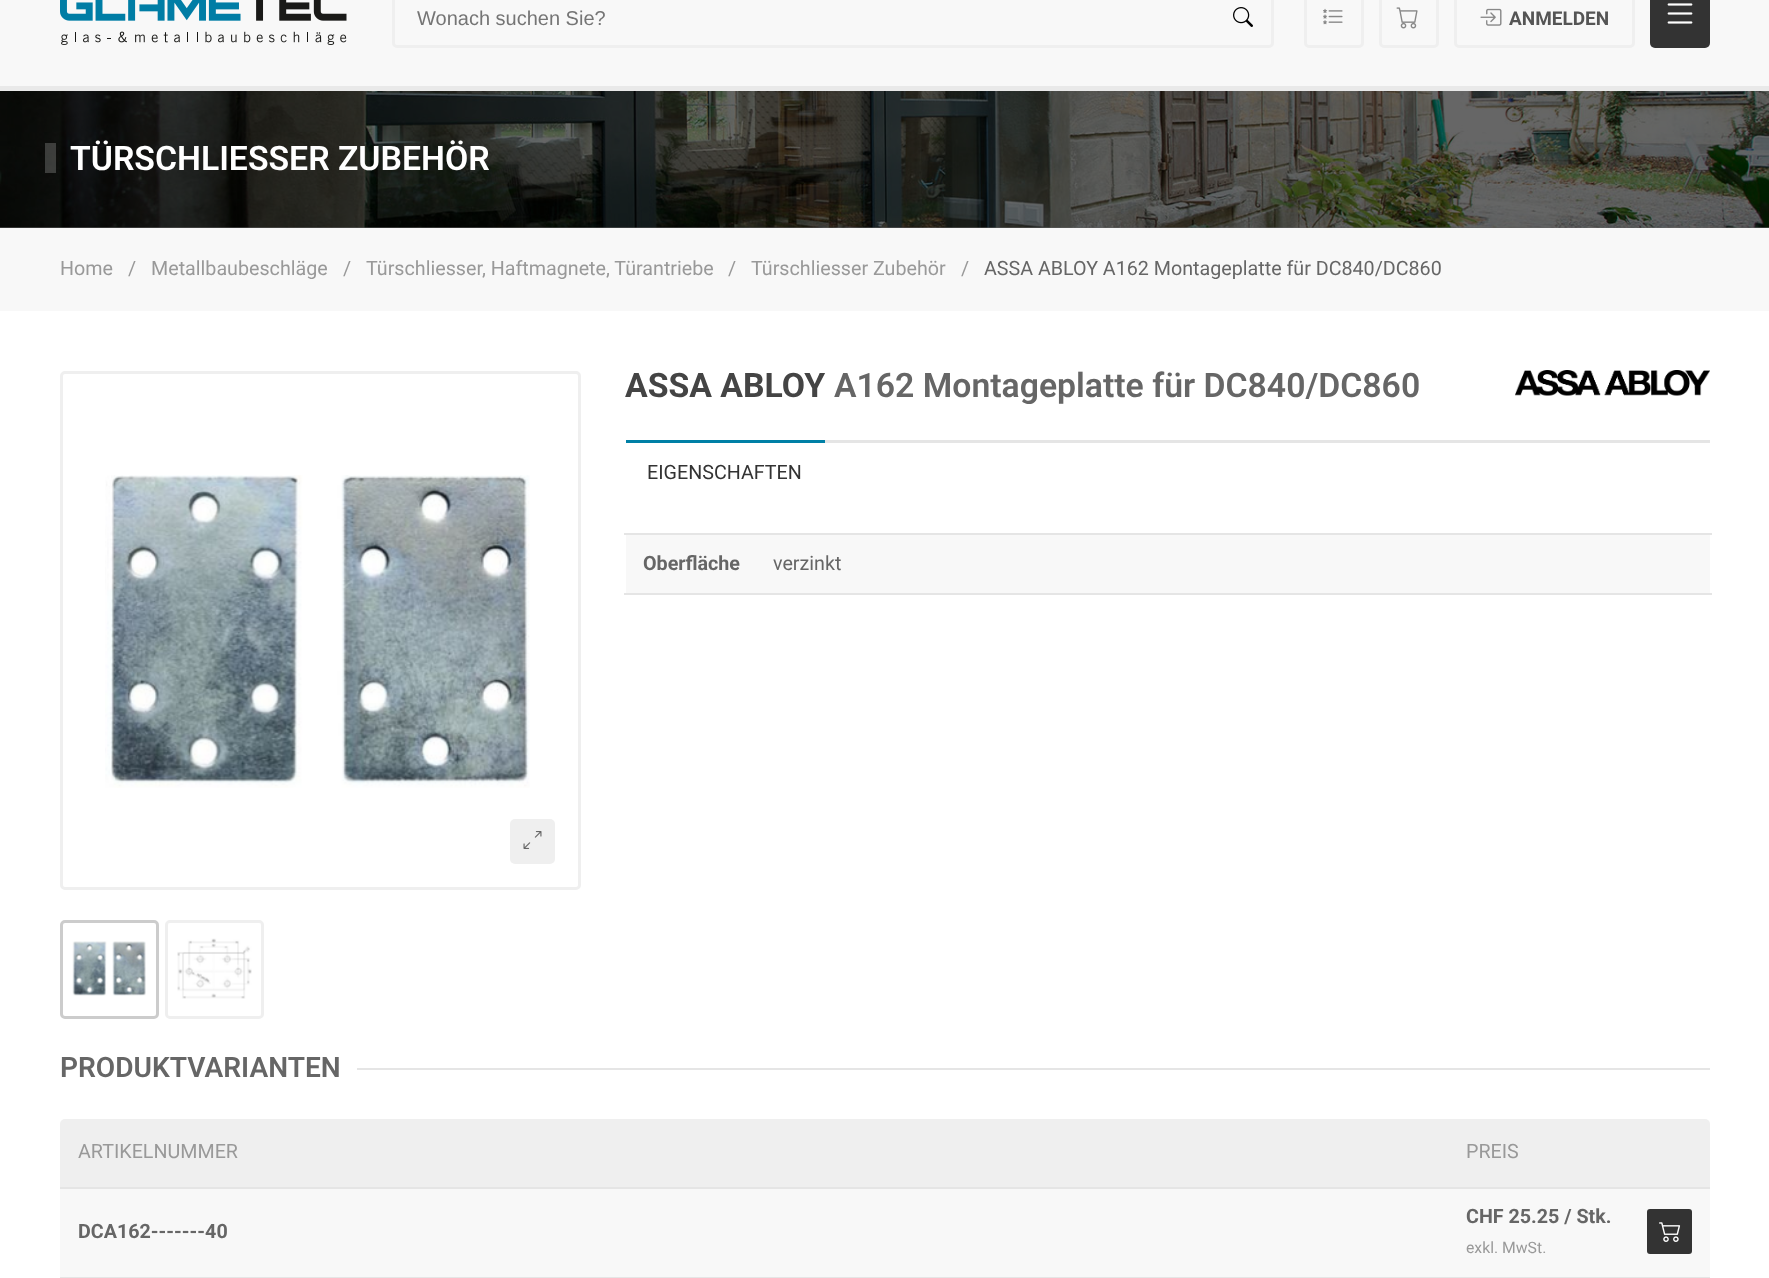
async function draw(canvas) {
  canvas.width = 1769
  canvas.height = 1278
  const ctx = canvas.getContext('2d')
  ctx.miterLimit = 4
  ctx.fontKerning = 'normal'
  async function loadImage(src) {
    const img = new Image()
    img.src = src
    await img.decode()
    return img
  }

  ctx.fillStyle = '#fff'
  ctx.fillRect(0, 0, 1769, 1278)
  ctx.fillStyle = '#e9e9e9'
  ctx.fillRect(0, 86, 1769, 5)
  ctx.fillStyle = '#f8f8f8'
  ctx.fillRect(0, 0, 1769, 86)
  ctx.drawImage(await loadImage('image0.png'), 60, 0, 287, 45)
  ctx.beginPath()
  ctx.roundRect(393.5, -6.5, 879, 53, 3.5)
  ctx.strokeStyle = '#efefef'
  ctx.lineWidth = 3
  ctx.stroke()
  ctx.font = '20px Liberation Sans'
  ctx.fillStyle = '#757575'
  ctx.fillText('Wonach suchen Sie?', 417, 25)
  ctx.drawImage(await loadImage('image1.png'), 1233, 7, 20, 20)
  ctx.beginPath()
  ctx.roundRect(1305.5, -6.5, 57, 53, 3.5)
  ctx.stroke()
  ctx.drawImage(await loadImage('image2.png'), 1323, 8, 20, 17)
  ctx.beginPath()
  ctx.roundRect(1380.5, -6.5, 57, 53, 3.5)
  ctx.stroke()
  ctx.drawImage(await loadImage('image3.png'), 1396, 7, 22, 22)
  ctx.beginPath()
  ctx.roundRect(1455.5, -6.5, 178, 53, 3.5)
  ctx.stroke()
  ctx.drawImage(await loadImage('image4.png'), 1480, 8, 22, 18)
  ctx.font = 'bold 19px Roboto'
  ctx.fillStyle = '#555'
  ctx.fillText('ANMELDEN', 1509, 25)
  ctx.fillStyle = '#333'
  ctx.beginPath()
  ctx.roundRect(1650, -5, 60, 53, 5)
  ctx.fill()
  ctx.drawImage(await loadImage('image5.png'), 1667, 3, 26, 21)
  ctx.fillStyle = '#606060'
  ctx.fillRect(0, 227, 1769, 1)
  ctx.drawImage(await loadImage('image6.png'), 0, 91, 1769, 137)
  ctx.fillStyle = '#ffffff33'
  ctx.fillRect(45, 143, 11, 30)
  ctx.font = '600 33.75px Roboto'
  ctx.fillStyle = '#fff'
  ctx.fillText('TÜRSCHLIESSER ZUBEHÖR', 70, 170)
  ctx.fillStyle = '#f8f8f8'
  ctx.fillRect(0, 228, 1769, 83)
  ctx.font = '19.7px Roboto'
  ctx.fillStyle = '#999'
  ctx.fillText('Home', 60, 275)
  ctx.fillText('/', 128, 275)
  ctx.fillText('Metallbaubeschläge', 151, 275)
  ctx.fillText('/', 343, 275)
  ctx.fillText('Türschliesser, Haftmagnete, Türantriebe', 366, 275)
  ctx.fillText('/', 728, 275)
  ctx.fillText('Türschliesser Zubehör', 751, 275)
  ctx.fillText('/', 961, 275)
  ctx.fillStyle = '#666'
  ctx.fillText('ASSA ABLOY A162 Montageplatte für DC840/DC860', 984, 275)
  ctx.beginPath()
  ctx.roundRect(61.5, 372.5, 518, 516, 3.5)
  ctx.stroke()
  ctx.drawImage(await loadImage('image7.png'), 105, 475, 425, 313)
  ctx.fillStyle = '#efefef'
  ctx.beginPath()
  ctx.roundRect(510, 819, 45, 45, 5)
  ctx.fill()
  ctx.drawImage(await loadImage('image8.png'), 523, 831, 19, 18)
  ctx.beginPath()
  ctx.roundRect(61.5, 921.5, 96, 96, 3.5)
  ctx.strokeStyle = '#ccc'
  ctx.stroke()
  ctx.drawImage(await loadImage('image9.png'), 72, 941, 74, 55)
  ctx.beginPath()
  ctx.roundRect(166.5, 921.5, 96, 96, 3.5)
  ctx.strokeStyle = '#efefef'
  ctx.stroke()
  ctx.drawImage(await loadImage('image10.png'), 177, 938, 75, 61)
  ctx.fillStyle = '#ffffff4d'
  ctx.fillRect(168, 923, 93, 93)
  ctx.font = 'bold 33.75px Roboto'
  ctx.fillStyle = '#444'
  ctx.fillText('ASSA ABLOY', 625, 397)
  ctx.font = '600 33.75px Roboto'
  ctx.fillStyle = '#666'
  ctx.fillText('A162 Montageplatte für DC840/DC860', 834, 397)
  ctx.drawImage(await loadImage('image11.png'), 1515, 370, 195, 26)
  ctx.fillStyle = '#e5e5e5'
  ctx.fillRect(825, 440, 885, 3)
  ctx.fillStyle = '#0080a6'
  ctx.fillRect(626, 440, 199, 3)
  ctx.font = '19.7px Roboto'
  ctx.fillStyle = '#333'
  ctx.fillText('EIGENSCHAFTEN', 647, 479)
  ctx.fillStyle = '#f8f8f8'
  ctx.fillRect(626, 535, 1084, 58)
  ctx.fillStyle = '#e5e5e5'
  ctx.fillRect(624, 533, 1088, 2)
  ctx.fillRect(624, 593, 1088, 2)
  ctx.font = 'bold 19.7px Roboto'
  ctx.fillStyle = '#666'
  ctx.fillText('Oberfläche', 643, 570)
  ctx.font = '19.7px Roboto'
  ctx.fillText('verzinkt', 773, 570)
  ctx.font = '600 28.1px Roboto'
  ctx.fillText('PRODUKTVARIANTEN', 60, 1077)
  ctx.fillStyle = '#e5e5e5'
  ctx.fillRect(357, 1068, 1353, 2)
  ctx.fillStyle = '#efefef'
  ctx.beginPath()
  ctx.roundRect(60, 1119, 1388, 68, [5, 0, 0, 0])
  ctx.fill()
  ctx.font = '19.7px Roboto'
  ctx.fillStyle = '#999'
  ctx.fillText('ARTIKELNUMMER', 78, 1158)
  ctx.fillStyle = '#efefef'
  ctx.fillRect(1448, 1119, 181, 68)
  ctx.fillStyle = '#999'
  ctx.fillText('PREIS', 1466, 1158)
  ctx.fillStyle = '#efefef'
  ctx.beginPath()
  ctx.roundRect(1629, 1119, 81, 68, [0, 5, 0, 0])
  ctx.fill()
  ctx.fillStyle = '#f8f8f8'
  ctx.fillRect(60, 1189, 1650, 88)
  ctx.fillStyle = '#e5e5e5'
  ctx.fillRect(60, 1187, 1650, 2)
  ctx.fillRect(60, 1277, 1650, 1)
  ctx.font = 'bold 19.7px Roboto'
  ctx.fillStyle = '#666'
  ctx.fillText('DCA162-------40', 78, 1238)
  ctx.fillText('CHF 25.25 / Stk.', 1466, 1223)
  ctx.font = '15.75px Roboto'
  ctx.fillStyle = '#999'
  ctx.fillText('exkl. MwSt.', 1466, 1253)
  ctx.fillStyle = '#333'
  ctx.beginPath()
  ctx.roundRect(1647, 1209, 45, 45, 3)
  ctx.fill()
  ctx.drawImage(await loadImage('image12.png'), 1659, 1222, 22, 20)
}

draw(document.querySelector('canvas'))
